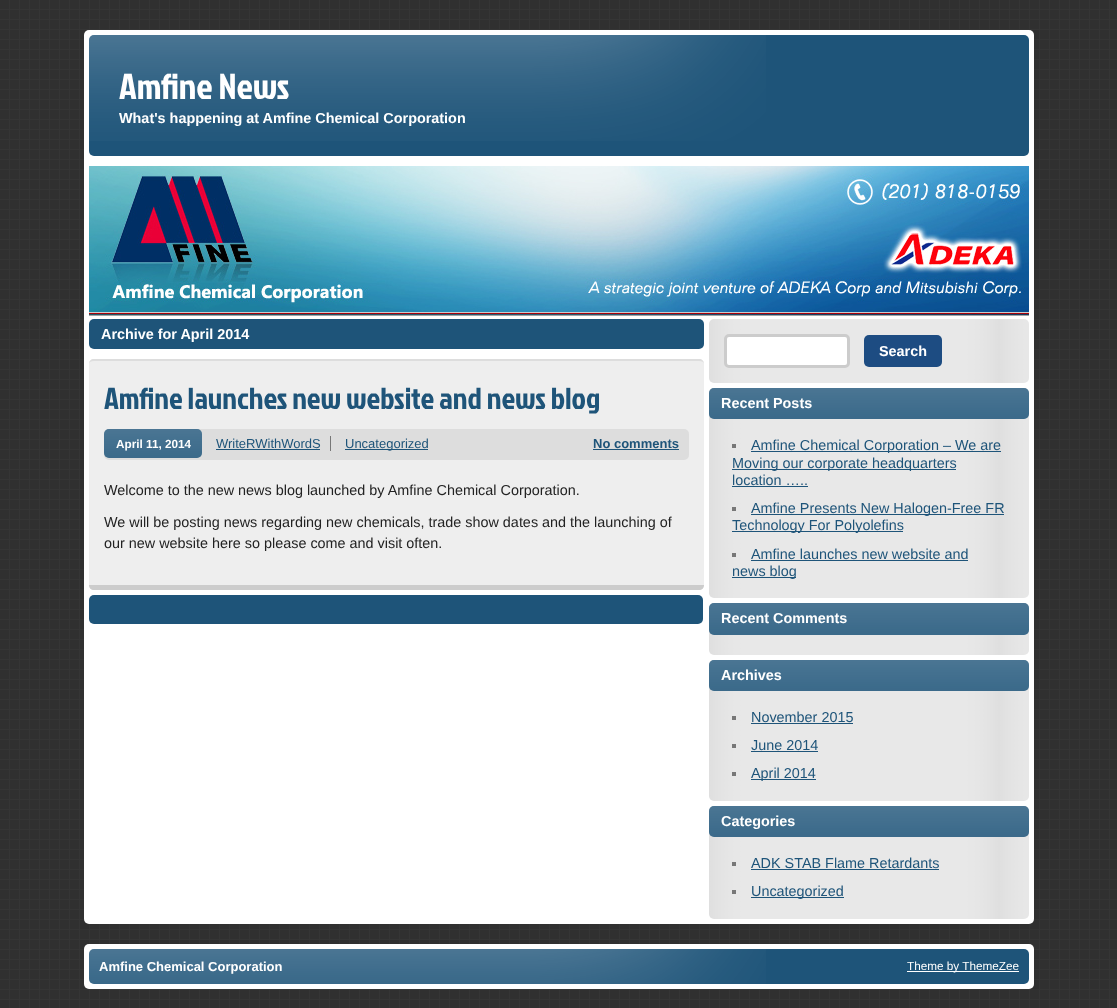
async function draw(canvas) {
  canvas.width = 1117
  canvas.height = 1008
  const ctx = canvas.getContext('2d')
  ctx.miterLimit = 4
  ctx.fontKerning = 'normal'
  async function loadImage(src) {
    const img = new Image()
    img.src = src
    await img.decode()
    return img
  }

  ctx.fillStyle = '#fff'
  ctx.fillRect(0, 0, 1117, 1008)
  ctx.drawImage(await loadImage('image0.png'), 0, 0, 1117, 1008)
  ctx.beginPath()
  ctx.roundRect(84, 30, 950, 894, 5)
  ctx.fill()
  ctx.fillStyle = '#1e5479'
  ctx.beginPath()
  ctx.roundRect(89, 35, 940, 121, 5)
  ctx.fill()
  ctx.drawImage(await loadImage('image1.png'), 89, 35, 677, 106)
  ctx.font = '36px Jockey One'
  ctx.fillStyle = '#fff'
  ctx.fillText('Amfine News', 119, 99)
  ctx.font = 'bold 14.4px Liberation Sans'
  ctx.fillText('What\'s happening at Amfine Chemical Corporation', 119, 123)
  ctx.drawImage(await loadImage('image2.png'), 89, 166, 940, 150)
  ctx.fillStyle = '#1e5479'
  ctx.beginPath()
  ctx.roundRect(89, 319, 615, 30, 5)
  ctx.fill()
  ctx.fillStyle = '#fff'
  ctx.fillText('Archive for April 2014', 101, 339)
  ctx.fillStyle = '#eee'
  ctx.beginPath()
  ctx.roundRect(89, 359, 615, 231, 5)
  ctx.fill()
  ctx.fillStyle = '#ddd'
  ctx.beginPath()
  ctx.moveTo(94, 359)
  ctx.bezierCurveTo(91, 359, 89, 361, 89, 364)
  ctx.bezierCurveTo(89, 362, 91, 361, 94, 361)
  ctx.lineTo(699, 361)
  ctx.bezierCurveTo(702, 361, 704, 362, 704, 364)
  ctx.bezierCurveTo(704, 361, 702, 359, 699, 359)
  ctx.closePath()
  ctx.fill()
  ctx.fillStyle = '#ccc'
  ctx.beginPath()
  ctx.moveTo(699, 590)
  ctx.bezierCurveTo(702, 590, 704, 588, 704, 585)
  ctx.lineTo(89, 585)
  ctx.bezierCurveTo(89, 588, 91, 590, 94, 590)
  ctx.closePath()
  ctx.fill()
  ctx.font = '30.25px Jockey One'
  ctx.fillStyle = '#1e5479'
  ctx.fillText('Amfine launches new website and news blog', 104, 409)
  ctx.fillStyle = '#ddd'
  ctx.beginPath()
  ctx.roundRect(104, 429, 585, 31, 5)
  ctx.fill()
  ctx.fillStyle = '#1e5479'
  ctx.beginPath()
  ctx.roundRect(104, 429, 98, 29, 5)
  ctx.fill()
  ctx.drawImage(await loadImage('image3.png'), 104, 429, 98, 29)
  ctx.font = '13px Liberation Sans'
  ctx.fillText('WriteRWithWordS', 216, 448)
  ctx.fillStyle = '#777'
  ctx.fillRect(330, 436, 1, 15)
  ctx.fillStyle = '#1e5479'
  ctx.fillRect(216, 449, 104, 1)
  ctx.fillRect(345, 449, 83, 1)
  ctx.fillText('Uncategorized', 345, 448)
  ctx.font = 'bold 11.75px Liberation Sans'
  ctx.fillStyle = '#fff'
  ctx.fillText('April 11, 2014', 116, 448)
  ctx.font = 'bold 13px Liberation Sans'
  ctx.fillStyle = '#1e5479'
  ctx.fillText('No comments', 593, 448)
  ctx.fillRect(593, 449, 86, 1)
  ctx.font = '14.4px Liberation Sans'
  ctx.fillStyle = '#222'
  ctx.fillText('Welcome to the new news blog launched by Amfine Chemical Corporation.', 104, 495)
  ctx.fillText('We will be posting news regarding new chemicals, trade show dates and the launching of', 104, 527)
  ctx.fillText('our new website here so please come and visit often.', 104, 548)
  ctx.fillStyle = '#1e5479'
  ctx.beginPath()
  ctx.roundRect(89, 595, 614, 29, 5)
  ctx.fill()
  ctx.drawImage(await loadImage('image4.png'), 709, 319, 320, 64)
  ctx.fillStyle = '#fff'
  ctx.beginPath()
  ctx.roundRect(725.5, 335.5, 123, 31, 3.5)
  ctx.fill()
  ctx.strokeStyle = '#ccc'
  ctx.lineWidth = 3
  ctx.stroke()
  ctx.fillStyle = '#1d4c82'
  ctx.beginPath()
  ctx.roundRect(864, 335, 78, 32, 5)
  ctx.fill()
  ctx.font = 'bold 14.4px Liberation Sans'
  ctx.fillStyle = '#fff'
  ctx.fillText('Search', 879, 356)
  ctx.drawImage(await loadImage('image5.png'), 709, 388, 320, 210)
  ctx.fillStyle = '#1e5479'
  ctx.beginPath()
  ctx.roundRect(709, 388, 320, 31, 5)
  ctx.fill()
  ctx.drawImage(await loadImage('image6.png'), 709, 388, 320, 31)
  ctx.fillStyle = '#fff'
  ctx.fillText('Recent Posts', 721, 408)
  ctx.fillStyle = '#777'
  ctx.fillRect(732, 444, 4, 4)
  ctx.fillStyle = '#1e5479'
  ctx.fillRect(751, 451, 250, 1)
  ctx.font = '14.4px Liberation Sans'
  ctx.fillText('Amfine Chemical Corporation – We are', 751, 450)
  ctx.fillRect(732, 469, 224, 1)
  ctx.fillText('Moving our corporate headquarters', 732, 468)
  ctx.fillText('location …..', 732, 485)
  ctx.fillRect(732, 486, 76, 1)
  ctx.fillStyle = '#777'
  ctx.fillRect(732, 507, 4, 4)
  ctx.fillStyle = '#1e5479'
  ctx.fillRect(751, 514, 253, 1)
  ctx.fillText('Amfine Presents New Halogen-Free FR', 751, 513)
  ctx.fillRect(732, 531, 171, 1)
  ctx.fillText('Technology For Polyolefins', 732, 530)
  ctx.fillStyle = '#777'
  ctx.fillRect(732, 553, 4, 4)
  ctx.fillStyle = '#1e5479'
  ctx.fillText('Amfine launches new website and', 751, 559)
  ctx.fillRect(751, 560, 217, 1)
  ctx.fillRect(732, 577, 64, 1)
  ctx.fillText('news blog', 732, 576)
  ctx.drawImage(await loadImage('image7.png'), 709, 603, 320, 52)
  ctx.beginPath()
  ctx.roundRect(709, 603, 320, 32, 5)
  ctx.fill()
  ctx.drawImage(await loadImage('image8.png'), 709, 603, 320, 32)
  ctx.font = 'bold 14.4px Liberation Sans'
  ctx.fillStyle = '#fff'
  ctx.fillText('Recent Comments', 721, 623)
  ctx.drawImage(await loadImage('image9.png'), 709, 660, 320, 141)
  ctx.fillStyle = '#1e5479'
  ctx.beginPath()
  ctx.roundRect(709, 660, 320, 31, 5)
  ctx.fill()
  ctx.drawImage(await loadImage('image6.png'), 709, 660, 320, 31)
  ctx.fillStyle = '#fff'
  ctx.fillText('Archives', 721, 680)
  ctx.fillStyle = '#777'
  ctx.fillRect(732, 716, 4, 4)
  ctx.font = '14.4px Liberation Sans'
  ctx.fillStyle = '#1e5479'
  ctx.fillText('November 2015', 751, 722)
  ctx.fillRect(751, 723, 102, 1)
  ctx.fillStyle = '#777'
  ctx.fillRect(732, 744, 4, 4)
  ctx.fillStyle = '#1e5479'
  ctx.fillText('June 2014', 751, 750)
  ctx.fillRect(751, 751, 67, 1)
  ctx.fillStyle = '#777'
  ctx.fillRect(732, 772, 4, 4)
  ctx.fillStyle = '#1e5479'
  ctx.fillRect(751, 779, 65, 1)
  ctx.fillText('April 2014', 751, 778)
  ctx.drawImage(await loadImage('image10.png'), 709, 806, 320, 113)
  ctx.beginPath()
  ctx.roundRect(709, 806, 320, 31, 5)
  ctx.fill()
  ctx.drawImage(await loadImage('image6.png'), 709, 806, 320, 31)
  ctx.font = 'bold 14.4px Liberation Sans'
  ctx.fillStyle = '#fff'
  ctx.fillText('Categories', 721, 826)
  ctx.fillStyle = '#777'
  ctx.fillRect(732, 862, 4, 4)
  ctx.font = '14.4px Liberation Sans'
  ctx.fillStyle = '#1e5479'
  ctx.fillText('ADK STAB Flame Retardants', 751, 868)
  ctx.fillRect(751, 869, 188, 1)
  ctx.fillStyle = '#777'
  ctx.fillRect(732, 890, 4, 4)
  ctx.fillStyle = '#1e5479'
  ctx.fillRect(751, 897, 93, 1)
  ctx.fillText('Uncategorized', 751, 896)
  ctx.fillStyle = '#fff'
  ctx.beginPath()
  ctx.roundRect(84, 944, 950, 45, 5)
  ctx.fill()
  ctx.fillStyle = '#1e5479'
  ctx.beginPath()
  ctx.roundRect(89, 949, 940, 35, 5)
  ctx.fill()
  ctx.drawImage(await loadImage('image11.png'), 89, 949, 677, 35)
  ctx.font = 'bold 13px Liberation Sans'
  ctx.fillStyle = '#fff'
  ctx.fillText('Amfine Chemical Corporation', 99, 971)
  ctx.fillRect(907, 971, 112, 1)
  ctx.font = '11.75px Liberation Sans'
  ctx.fillText('Theme by ThemeZee', 907, 970)
}

draw(document.querySelector('canvas'))
